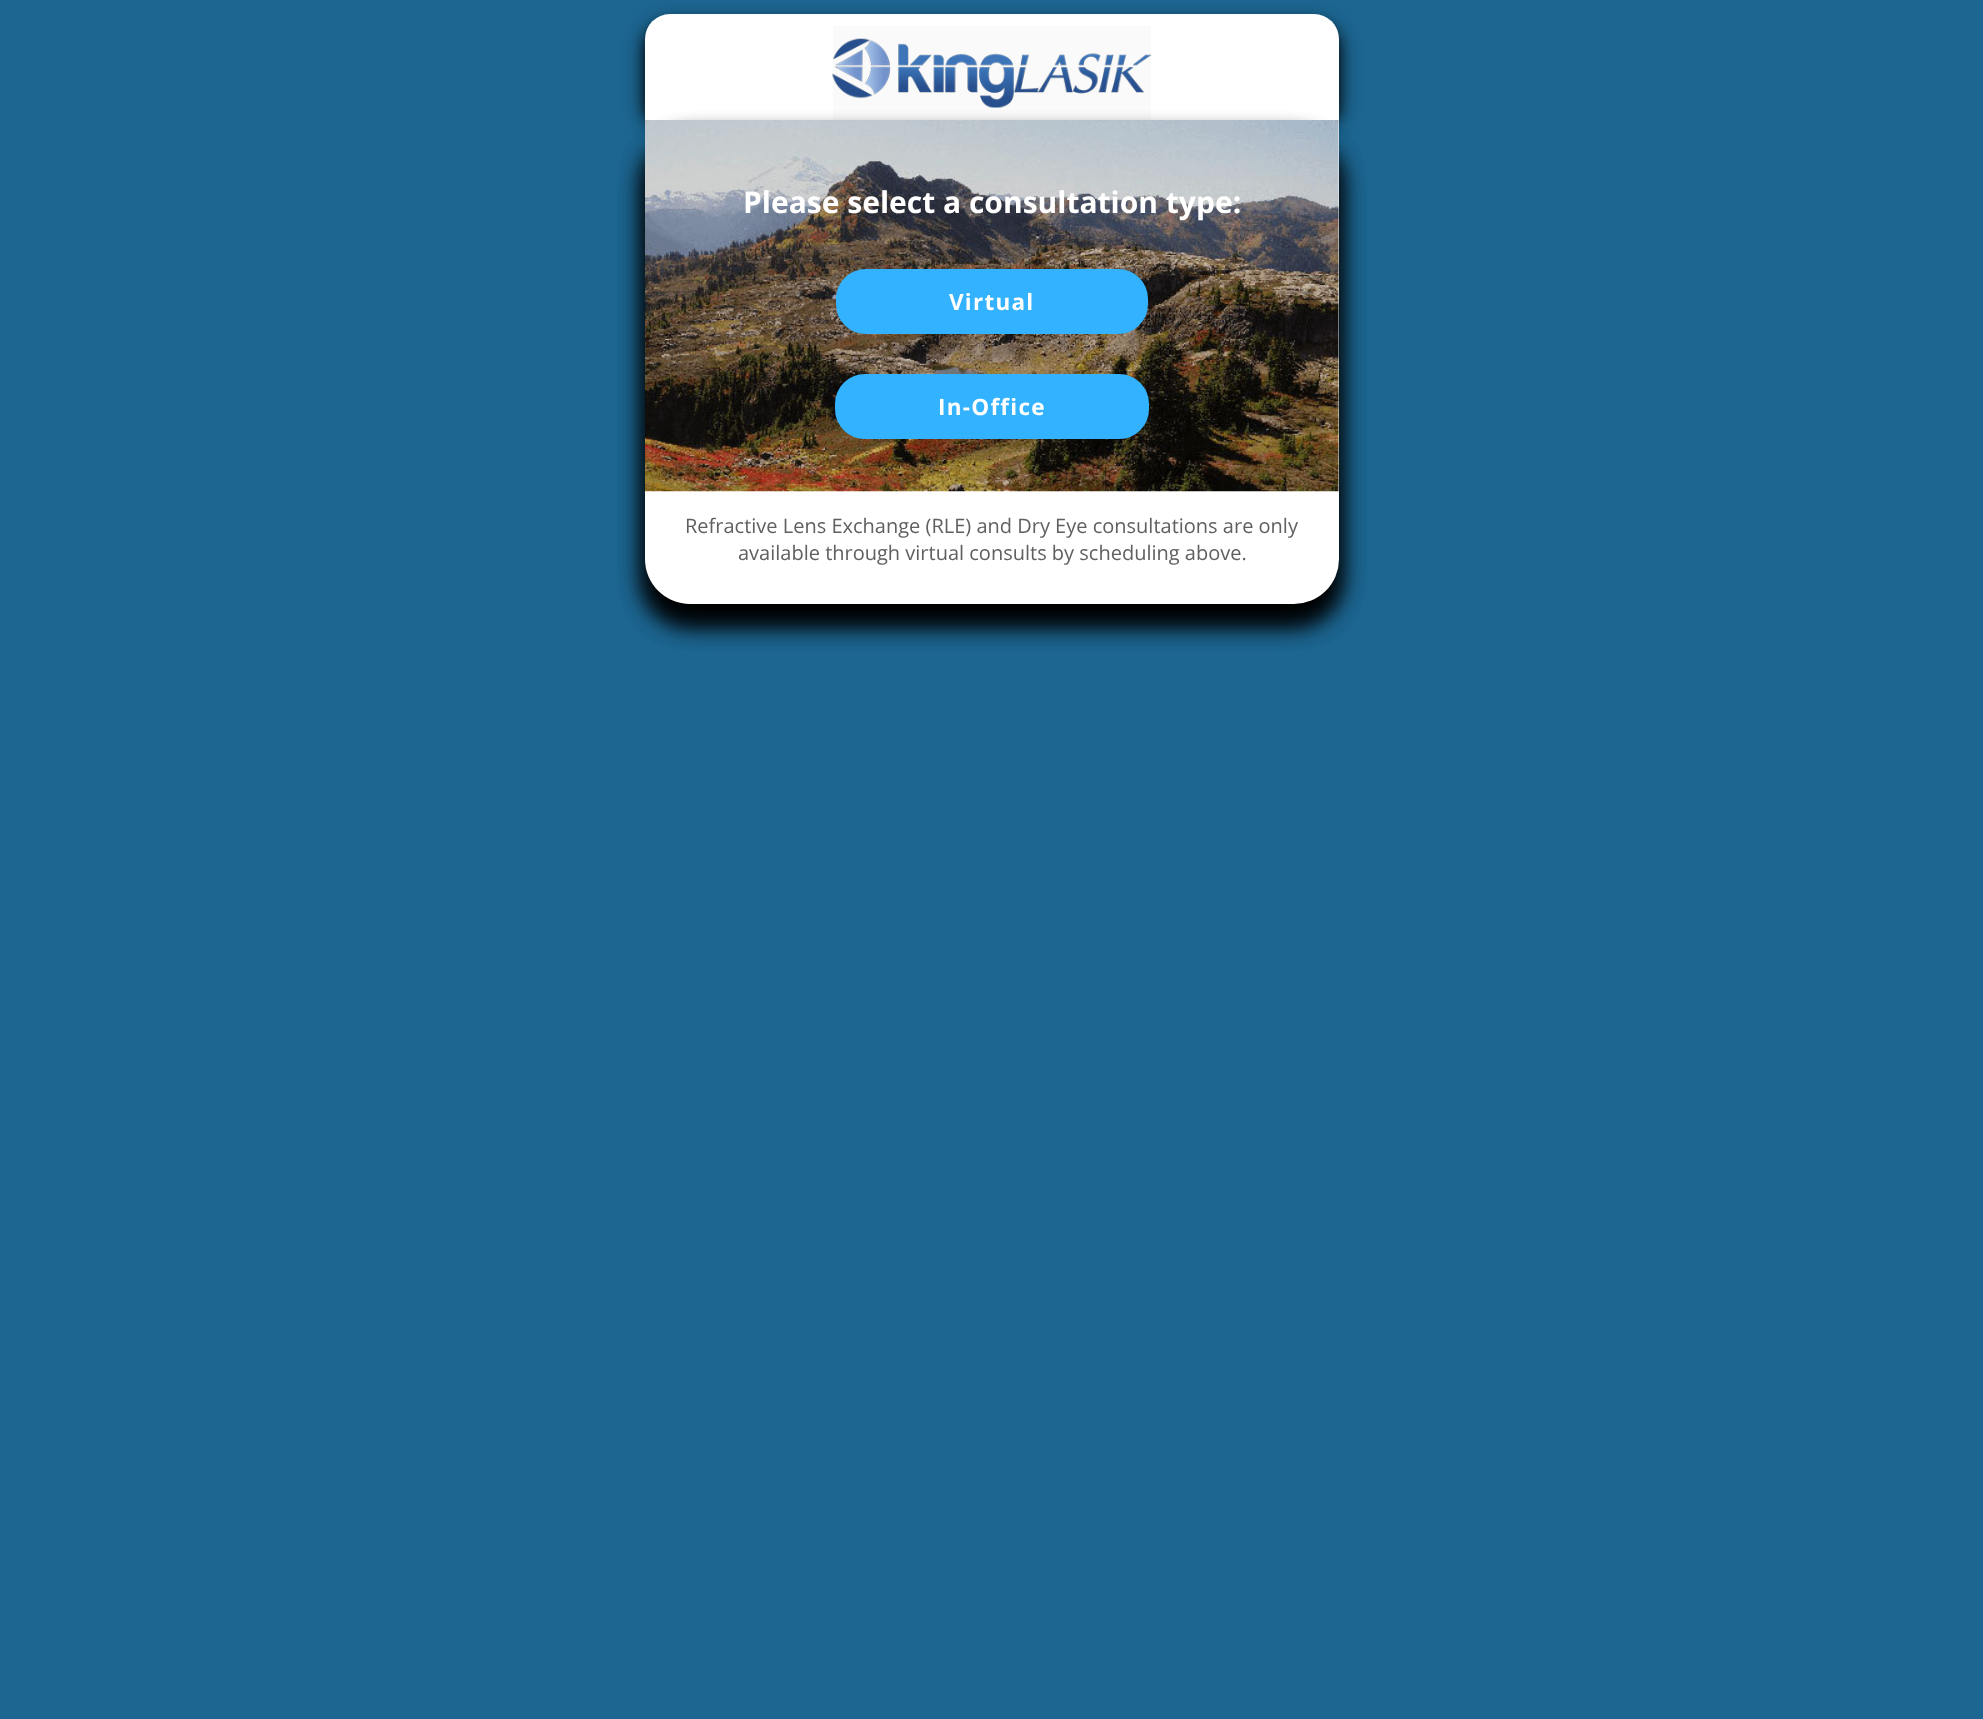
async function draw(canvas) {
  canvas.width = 1983
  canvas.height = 1719
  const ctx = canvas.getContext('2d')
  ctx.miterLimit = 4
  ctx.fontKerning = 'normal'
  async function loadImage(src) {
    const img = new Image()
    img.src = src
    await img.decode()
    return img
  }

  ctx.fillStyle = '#1d6691'
  ctx.fillRect(0, 0, 1983, 1719)
  ctx.fillStyle = '#00000080'
  ctx.filter = 'blur(9.5px)'
  ctx.beginPath()
  ctx.roundRect(648, 24, 693, 106, 25)
  ctx.fill()
  ctx.filter = 'none'
  ctx.filter = 'blur(9.5px)'
  ctx.beginPath()
  ctx.roundRect(643, 24, 693, 106, 25)
  ctx.fill()
  ctx.filter = 'none'
  ctx.filter = 'blur(6px)'
  ctx.beginPath()
  ctx.roundRect(645, 24, 694, 106, 25)
  ctx.fill()
  ctx.filter = 'none'
  ctx.fillStyle = '#fff'
  ctx.beginPath()
  ctx.roundRect(645, 14, 694, 106, [25, 25, 0, 0])
  ctx.fill()
  ctx.fillStyle = '#fafafa'
  ctx.fillRect(833, 26, 318, 94)
  ctx.drawImage(await loadImage('image0.png'), 832, 38, 320, 70)
  ctx.fillStyle = '#00000080'
  ctx.filter = 'blur(12.5px)'
  ctx.beginPath()
  ctx.roundRect(645, 139, 694, 484, 45)
  ctx.fill()
  ctx.filter = 'none'
  ctx.filter = 'blur(12.5px)'
  ctx.beginPath()
  ctx.roundRect(645, 139, 694, 484, 45)
  ctx.fill()
  ctx.filter = 'none'
  ctx.fillStyle = '#000'
  ctx.filter = 'blur(12.5px)'
  ctx.beginPath()
  ctx.roundRect(645, 139, 694, 484, 45)
  ctx.fill()
  ctx.filter = 'none'
  ctx.fillStyle = '#fff'
  ctx.beginPath()
  ctx.roundRect(645, 120, 694, 484, [0, 0, 45, 45])
  ctx.fill()
  ctx.drawImage(await loadImage('image1.png'), 645, 120, 694, 372)
  ctx.font = 'bold 30px Open Sans'
  ctx.fillText('Please select a consultation type:', 743, 213)
  ctx.fillStyle = '#32b2ff'
  ctx.beginPath()
  ctx.roundRect(837.5, 270.5, 309, 62, 28.5)
  ctx.fill()
  ctx.strokeStyle = '#32b2ff'
  ctx.lineWidth = 3
  ctx.stroke()
  ctx.letterSpacing = '1.25px'
  ctx.font = 'bold 22.5px Open Sans'
  ctx.fillStyle = '#fff'
  ctx.fillText('Virtual', 949, 310)
  ctx.fillStyle = '#32b2ff'
  ctx.beginPath()
  ctx.roundRect(836.5, 375.5, 311, 62, 28.5)
  ctx.fill()
  ctx.stroke()
  ctx.fillStyle = '#fff'
  ctx.fillText('In-Office', 938, 415)
  ctx.letterSpacing = '0px'
  ctx.font = '20px Open Sans'
  ctx.fillStyle = '#606060'
  ctx.fillText('Refractive Lens Exchange (RLE) and Dry Eye consultations are only', 685, 533)
  ctx.fillText('available through virtual consults by scheduling above.', 738, 560)
}

draw(document.querySelector('canvas'))
